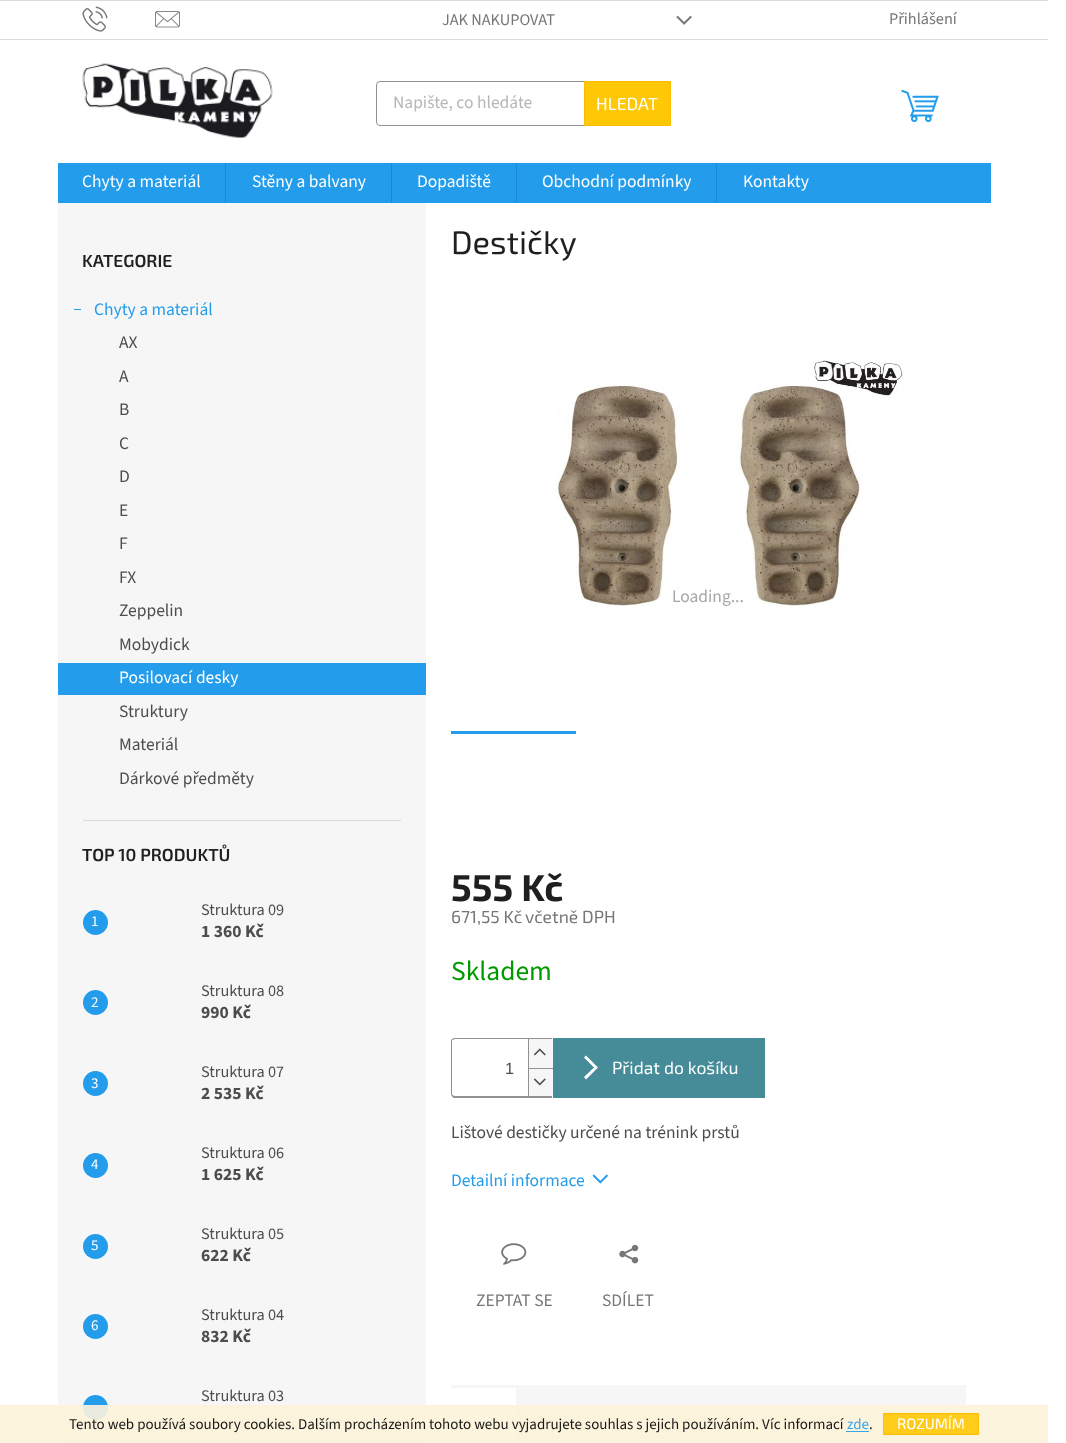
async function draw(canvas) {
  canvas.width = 1066
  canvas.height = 1443
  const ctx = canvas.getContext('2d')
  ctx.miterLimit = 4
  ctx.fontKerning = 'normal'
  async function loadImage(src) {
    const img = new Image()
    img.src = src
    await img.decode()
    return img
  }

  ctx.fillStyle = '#fff'
  ctx.fillRect(0, 0, 1066, 1443)
  ctx.fillStyle = '#dadada'
  ctx.fillRect(0, 0, 1048, 1)
  ctx.fillRect(0, 39, 1048, 1)
  ctx.drawImage(await loadImage('image0.png'), 82, 6, 26, 26)
  ctx.drawImage(await loadImage('image1.png'), 155, 11, 25, 17)
  ctx.font = '16.25px "Source Sans 3"'
  ctx.fillStyle = '#767676'
  ctx.fillText('JAK NAKUPOVAT', 442, 25)
  ctx.drawImage(await loadImage('image2.png'), 676, 15, 16, 10)
  ctx.fillText('Přihlášení', 889, 24)
  ctx.drawImage(await loadImage('image3.png'), 82, 63, 191, 75)
  ctx.beginPath()
  ctx.roundRect(376.5, 81.5, 294, 44, 3.5)
  ctx.strokeStyle = '#919191'
  ctx.stroke()
  ctx.font = '17.5px "Source Sans 3"'
  ctx.fillStyle = '#b6b6b6'
  ctx.fillText('Napište, co hledáte', 393, 108)
  ctx.fillStyle = '#ffc807'
  ctx.beginPath()
  ctx.rect(584.5, 81.5, 86, 44)
  ctx.fill()
  ctx.strokeStyle = '#fb0'
  ctx.stroke()
  ctx.font = '17.5px "Exo 2"'
  ctx.fillStyle = '#fff'
  ctx.fillText('HLEDAT', 596, 110)
  ctx.drawImage(await loadImage('image4.png'), 901, 89, 38, 33)
  ctx.fillStyle = '#239ceb'
  ctx.fillRect(58, 163, 933, 40)
  ctx.font = '17.5px "Source Sans 3"'
  ctx.fillStyle = '#fff'
  ctx.fillText('Chyty a materiál', 82, 187)
  ctx.fillStyle = '#1489d7'
  ctx.fillRect(225, 163, 1, 40)
  ctx.fillStyle = '#fff'
  ctx.fillText('Stěny a balvany', 252, 187)
  ctx.fillStyle = '#1489d7'
  ctx.fillRect(391, 163, 1, 40)
  ctx.fillStyle = '#fff'
  ctx.fillText('Dopadiště', 417, 187)
  ctx.fillStyle = '#1489d7'
  ctx.fillRect(516, 163, 1, 40)
  ctx.fillStyle = '#fff'
  ctx.fillText('Obchodní podmínky', 542, 187)
  ctx.fillStyle = '#1489d7'
  ctx.fillRect(716, 163, 1, 40)
  ctx.fillStyle = '#fff'
  ctx.fillText('Kontakty', 743, 187)
  ctx.fillStyle = '#f6f6f6'
  ctx.fillRect(58, 203, 368, 1240)
  ctx.fillStyle = '#dadada'
  ctx.fillRect(83, 820, 318, 1)
  ctx.font = '600 17.5px "Exo 2"'
  ctx.fillStyle = '#1f1f1f'
  ctx.fillText('KATEGORIE', 82, 267)
  ctx.fillStyle = '#239ceb'
  ctx.fillRect(74, 309, 7, 1)
  ctx.font = '17.5px "Source Sans 3"'
  ctx.fillText('Chyty a materiál', 94, 315)
  ctx.fillStyle = '#4d4d4d'
  ctx.fillText('AX', 119, 348)
  ctx.fillText('A', 119, 382)
  ctx.fillText('B', 119, 415)
  ctx.fillText('C', 119, 449)
  ctx.fillText('D', 119, 482)
  ctx.fillText('E', 119, 516)
  ctx.fillText('F', 119, 549)
  ctx.fillText('FX', 119, 583)
  ctx.fillText('Zeppelin', 119, 616)
  ctx.fillText('Mobydick', 119, 650)
  ctx.fillStyle = '#239ceb'
  ctx.fillRect(58, 663, 368, 32)
  ctx.fillStyle = '#fff'
  ctx.fillText('Posilovací desky', 119, 683)
  ctx.fillStyle = '#4d4d4d'
  ctx.fillText('Struktury', 119, 717)
  ctx.fillText('Materiál', 119, 750)
  ctx.fillText('Dárkové předměty', 119, 784)
  ctx.font = '600 17.5px "Exo 2"'
  ctx.fillStyle = '#1f1f1f'
  ctx.fillText('TOP 10 PRODUKTŮ', 82, 861)
  ctx.fillStyle = '#239ceb'
  ctx.beginPath()
  ctx.arc(95.5, 922.5, 12.5, 0, 2 * Math.PI)
  ctx.fill()
  ctx.font = '15px "Source Sans 3"'
  ctx.fillStyle = '#fff'
  ctx.fillText('1', 91, 926)
  ctx.font = '16.25px "Source Sans 3"'
  ctx.fillStyle = '#4d4d4d'
  ctx.fillText('Struktura 09', 201, 915)
  ctx.font = 'bold 17.5px "Source Sans 3"'
  ctx.fillText('1 360 Kč', 201, 937)
  ctx.fillStyle = '#239ceb'
  ctx.beginPath()
  ctx.arc(95.5, 1002.5, 12.5, 0, 2 * Math.PI)
  ctx.fill()
  ctx.font = '15px "Source Sans 3"'
  ctx.fillStyle = '#fff'
  ctx.fillText('2', 91, 1007)
  ctx.font = '16.25px "Source Sans 3"'
  ctx.fillStyle = '#4d4d4d'
  ctx.fillText('Struktura 08', 201, 996)
  ctx.font = 'bold 17.5px "Source Sans 3"'
  ctx.fillText('990 Kč', 201, 1018)
  ctx.fillStyle = '#239ceb'
  ctx.beginPath()
  ctx.arc(95.5, 1083.5, 12.5, 0, 2 * Math.PI)
  ctx.fill()
  ctx.font = '15px "Source Sans 3"'
  ctx.fillStyle = '#fff'
  ctx.fillText('3', 91, 1088)
  ctx.font = '16.25px "Source Sans 3"'
  ctx.fillStyle = '#4d4d4d'
  ctx.fillText('Struktura 07', 201, 1077)
  ctx.font = 'bold 17.5px "Source Sans 3"'
  ctx.fillText('2 535 Kč', 201, 1099)
  ctx.fillStyle = '#239ceb'
  ctx.beginPath()
  ctx.arc(95.5, 1165.5, 12.5, 0, 2 * Math.PI)
  ctx.fill()
  ctx.font = '15px "Source Sans 3"'
  ctx.fillStyle = '#fff'
  ctx.fillText('4', 91, 1169)
  ctx.font = '16.25px "Source Sans 3"'
  ctx.fillStyle = '#4d4d4d'
  ctx.fillText('Struktura 06', 201, 1158)
  ctx.font = 'bold 17.5px "Source Sans 3"'
  ctx.fillText('1 625 Kč', 201, 1180)
  ctx.fillStyle = '#239ceb'
  ctx.beginPath()
  ctx.arc(95.5, 1246.5, 12.5, 0, 2 * Math.PI)
  ctx.fill()
  ctx.font = '15px "Source Sans 3"'
  ctx.fillStyle = '#fff'
  ctx.fillText('5', 91, 1250)
  ctx.font = '16.25px "Source Sans 3"'
  ctx.fillStyle = '#4d4d4d'
  ctx.fillText('Struktura 05', 201, 1239)
  ctx.font = 'bold 17.5px "Source Sans 3"'
  ctx.fillText('622 Kč', 201, 1261)
  ctx.fillStyle = '#239ceb'
  ctx.beginPath()
  ctx.arc(95.5, 1326.5, 12.5, 0, 2 * Math.PI)
  ctx.fill()
  ctx.font = '15px "Source Sans 3"'
  ctx.fillStyle = '#fff'
  ctx.fillText('6', 91, 1330)
  ctx.font = '16.25px "Source Sans 3"'
  ctx.fillStyle = '#4d4d4d'
  ctx.fillText('Struktura 04', 201, 1320)
  ctx.font = 'bold 17.5px "Source Sans 3"'
  ctx.fillText('832 Kč', 201, 1342)
  ctx.fillStyle = '#239ceb'
  ctx.beginPath()
  ctx.arc(95.5, 1407.5, 12.5, 0, 2 * Math.PI)
  ctx.fill()
  ctx.font = '16.25px "Source Sans 3"'
  ctx.fillStyle = '#4d4d4d'
  ctx.fillText('Struktura 03', 201, 1401)
  ctx.font = '32.5px "Exo 2"'
  ctx.fillStyle = '#1f1f1f'
  ctx.fillText('Destičky', 451, 254)
  ctx.drawImage(await loadImage('image5.png'), 556, 360, 348, 247)
  ctx.font = '17.5px "Source Sans 3"'
  ctx.fillStyle = '#a6a6a6'
  ctx.fillText('Loading...', 672, 602)
  ctx.fillStyle = '#239ceb'
  ctx.fillRect(451, 731, 125, 3)
  ctx.font = 'bold 37.5px "Exo 2"'
  ctx.fillStyle = '#1f1f1f'
  ctx.fillText('555 Kč', 451, 901)
  ctx.font = '17.5px "Exo 2"'
  ctx.fillStyle = '#767676'
  ctx.fillText('671,55 Kč', 451, 923)
  ctx.fillText('včetně DPH', 525, 923)
  ctx.font = '27.5px "Source Sans 3"'
  ctx.fillStyle = '#009901'
  ctx.fillText('Skladem', 451, 980)
  ctx.fillStyle = '#919191'
  ctx.beginPath()
  ctx.moveTo(455, 1038)
  ctx.lineTo(552, 1038)
  ctx.lineTo(552, 1098)
  ctx.lineTo(455, 1098)
  ctx.bezierCurveTo(453, 1098, 451, 1096, 451, 1094)
  ctx.lineTo(451, 1041)
  ctx.bezierCurveTo(451, 1039, 453, 1038, 455, 1038)
  ctx.closePath()
  ctx.moveTo(455, 1039)
  ctx.lineTo(552, 1039)
  ctx.lineTo(552, 1096)
  ctx.lineTo(455, 1096)
  ctx.bezierCurveTo(454, 1096, 452, 1095, 452, 1094)
  ctx.lineTo(452, 1041)
  ctx.bezierCurveTo(452, 1040, 454, 1039, 455, 1039)
  ctx.closePath()
  ctx.fill('evenodd')
  ctx.font = '16.25px Liberation Sans'
  ctx.fillStyle = '#4d4d4d'
  ctx.fillText('1', 505, 1074)
  ctx.fillStyle = '#f6f6f6'
  ctx.fillRect(529, 1039, 24, 29)
  ctx.fillStyle = '#919191'
  ctx.fillRect(528, 1039, 1, 29)
  ctx.drawImage(await loadImage('image6.png'), 533, 1048, 13, 8)
  ctx.fillStyle = '#f6f6f6'
  ctx.fillRect(529, 1069, 24, 27)
  ctx.fillStyle = '#919191'
  ctx.fillRect(528, 1068, 25, 1)
  ctx.fillRect(528, 1068, 1, 28)
  ctx.drawImage(await loadImage('image7.png'), 533, 1078, 13, 8)
  ctx.fillStyle = '#468c98'
  ctx.fillRect(553, 1038, 212, 60)
  ctx.fillStyle = '#fff'
  ctx.beginPath()
  ctx.moveTo(586, 1079.5)
  ctx.lineTo(584, 1077)
  ctx.lineTo(594, 1067.5)
  ctx.lineTo(584, 1057.5)
  ctx.lineTo(586, 1055.5)
  ctx.lineTo(598, 1067.5)
  ctx.closePath()
  ctx.fill()
  ctx.font = '17.5px "Exo 2"'
  ctx.fillText('Přidat do košíku', 612, 1074)
  ctx.font = '17.5px "Source Sans 3"'
  ctx.fillStyle = '#4d4d4d'
  ctx.fillText('Lištové destičky určené na trénink prstů', 451, 1138)
  ctx.fillStyle = '#239ceb'
  ctx.fillText('Detailní informace', 451, 1186)
  ctx.drawImage(await loadImage('image8.png'), 592, 1174, 17, 10)
  ctx.drawImage(await loadImage('image9.png'), 501, 1243, 26, 22)
  ctx.fillStyle = '#767676'
  ctx.fillText('ZEPTAT SE', 476, 1306)
  ctx.drawImage(await loadImage('image10.png'), 619, 1244, 20, 20)
  ctx.fillText('SDÍLET', 602, 1306)
  ctx.fillStyle = '#f6f6f6'
  ctx.fillRect(516, 1385, 450, 53)
  ctx.fillRect(451, 1385, 65, 3)
  ctx.fillStyle = '#fdf3dae6'
  ctx.fillRect(0, 1405, 1048, 38)
  ctx.font = '15px "Source Sans 3"'
  ctx.fillStyle = '#191816'
  ctx.fillText('Tento web používá soubory cookies. Dalším procházením tohoto webu vyjadrujete souhlas s jejich používáním. Víc informací', 69, 1429)
  ctx.fillStyle = '#38a5ec'
  ctx.fillText('zde', 847, 1429)
  ctx.fillRect(846, 1431, 23, 1)
  ctx.fillStyle = '#191816'
  ctx.fillText('.', 869, 1429)
  ctx.fillStyle = '#ffcc1c'
  ctx.beginPath()
  ctx.rect(883.5, 1413.5, 95, 21)
  ctx.fill()
  ctx.strokeStyle = '#ffbd03'
  ctx.stroke()
  ctx.font = '15px "Exo 2"'
  ctx.fillStyle = '#fff'
  ctx.fillText('ROZUMÍM', 897, 1429)
}

draw(document.querySelector('canvas'))
